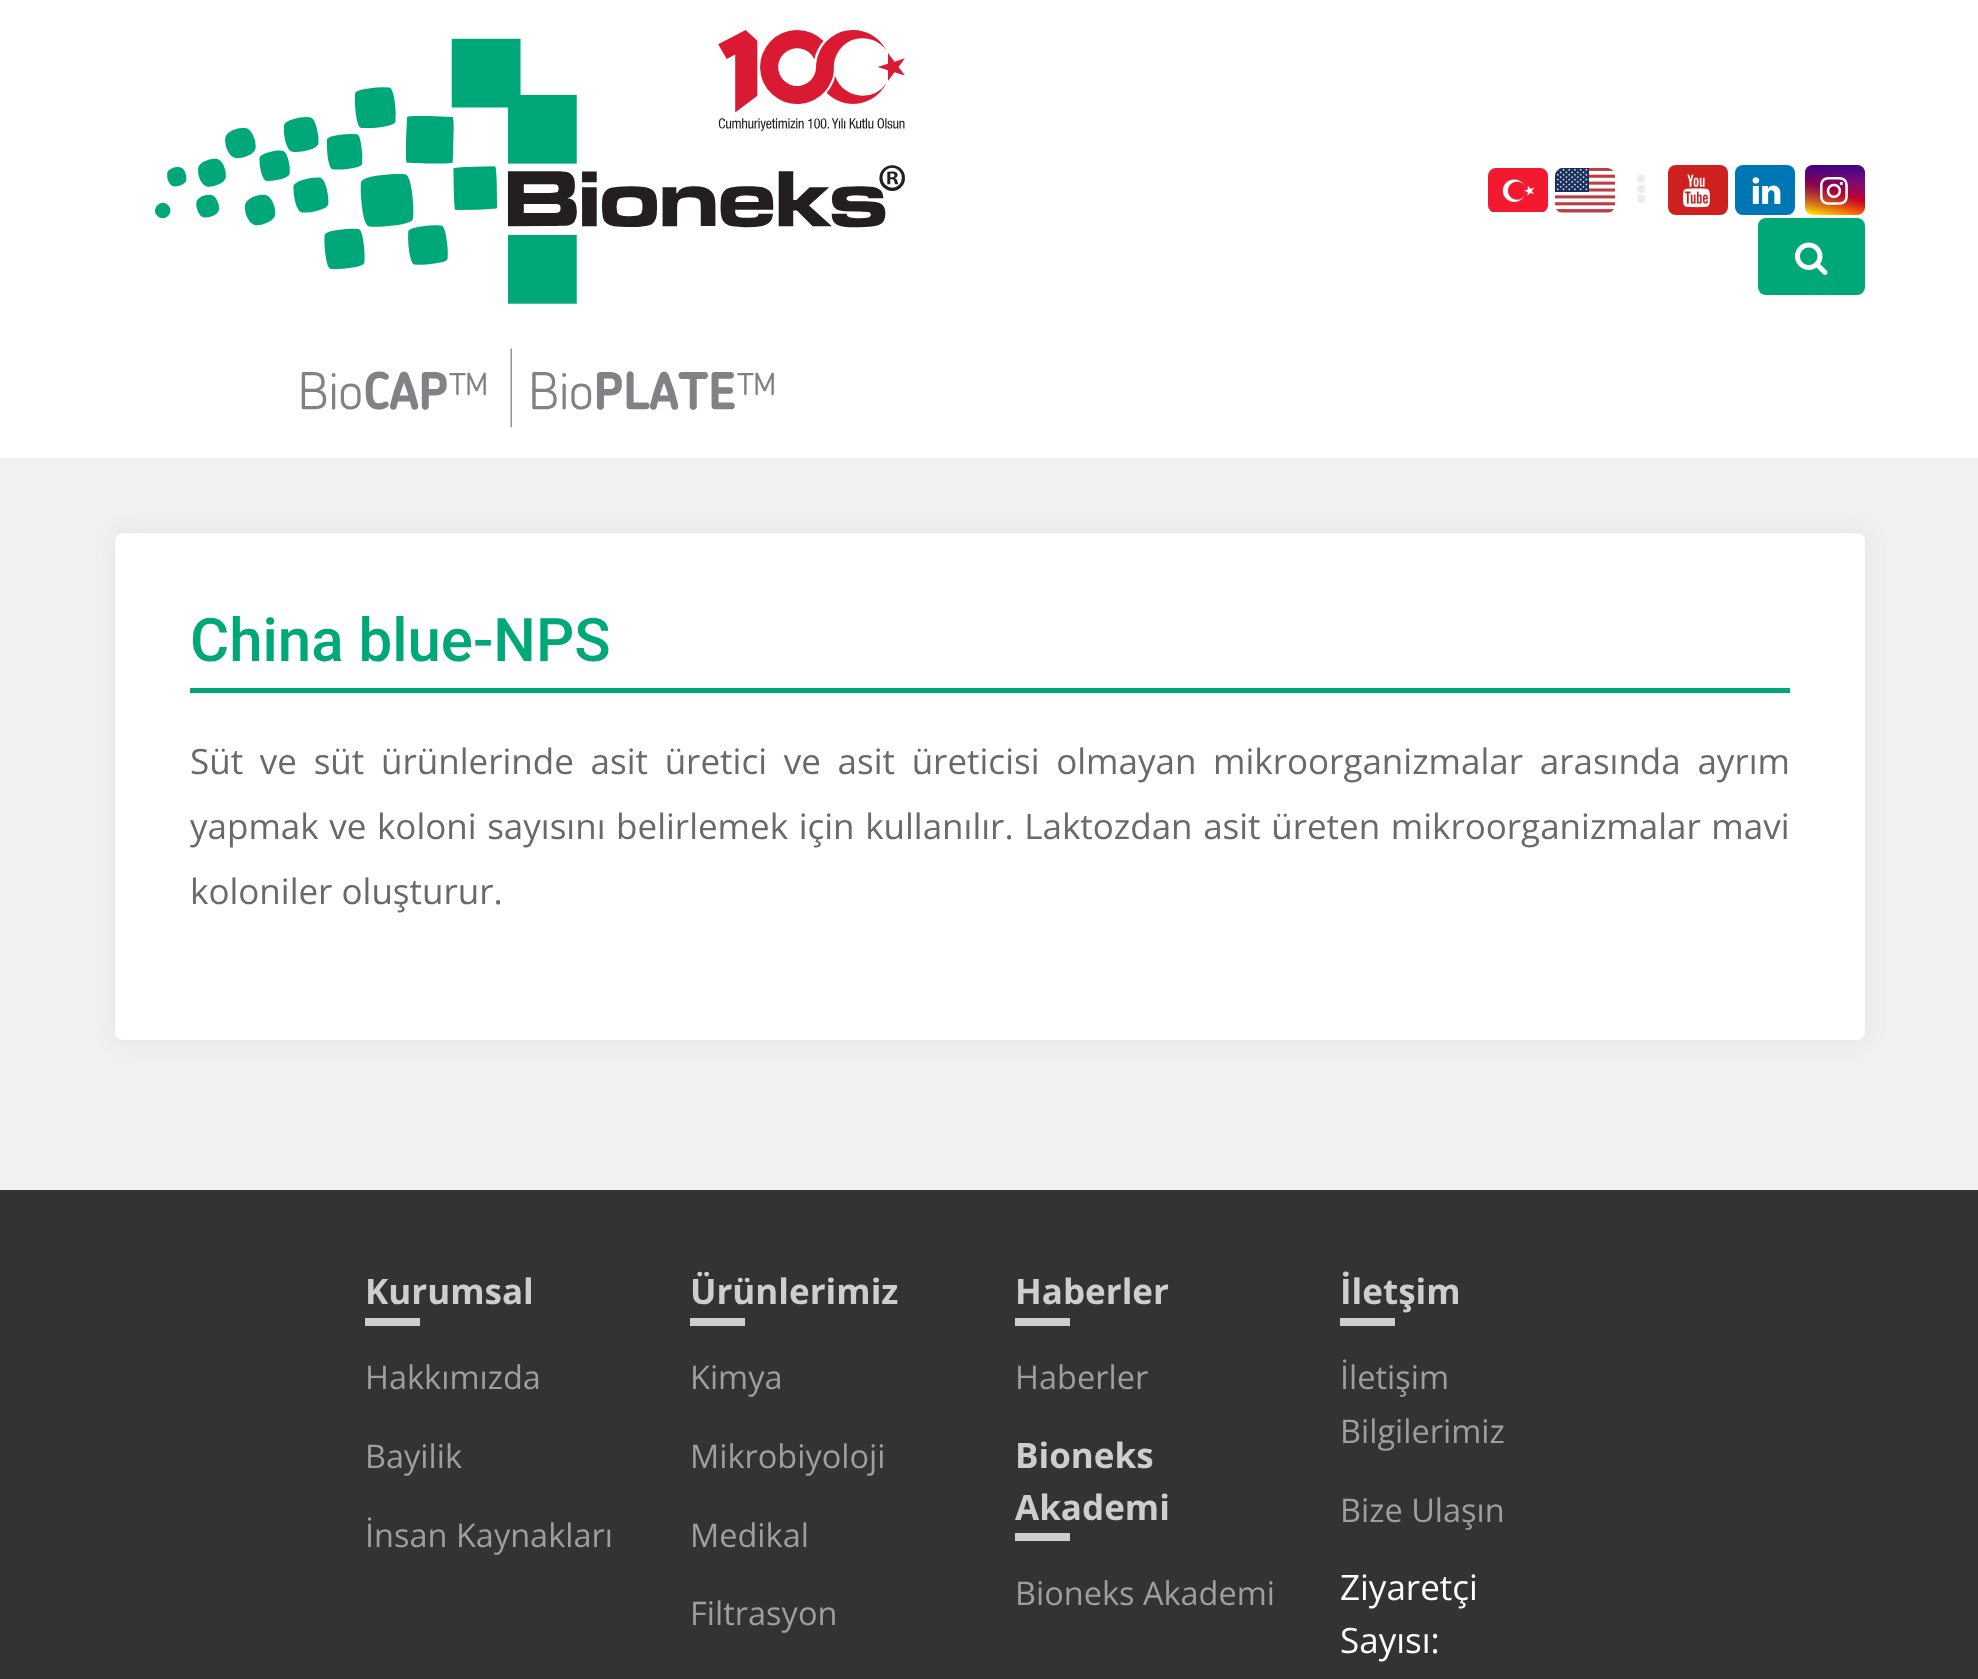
async function draw(canvas) {
  canvas.width = 1978
  canvas.height = 1679
  const ctx = canvas.getContext('2d')
  ctx.miterLimit = 4
  ctx.fontKerning = 'normal'
  async function loadImage(src) {
    const img = new Image()
    img.src = src
    await img.decode()
    return img
  }
  let gradient

  ctx.fillStyle = '#f1f1f1'
  ctx.fillRect(0, 0, 1978, 1679)
  ctx.fillStyle = '#fff'
  ctx.fillRect(0, 0, 1978, 458)
  ctx.drawImage(await loadImage('image0.png'), 155, 30, 750, 398)
  ctx.drawImage(await loadImage('image1.png'), 1488, 168, 60, 44)
  ctx.drawImage(await loadImage('image2.png'), 1555, 168, 60, 45)
  ctx.drawImage(await loadImage('image3.png'), 1637, 175, 8, 28)
  ctx.fillStyle = '#cd201f'
  ctx.beginPath()
  ctx.roundRect(1668, 165, 60, 50, 8)
  ctx.fill()
  ctx.drawImage(await loadImage('image4.png'), 1683, 174, 27, 34)
  ctx.fillStyle = '#0077b5'
  ctx.beginPath()
  ctx.roundRect(1735, 165, 60, 50, 8)
  ctx.fill()
  ctx.drawImage(await loadImage('image5.png'), 1752, 177, 29, 27)
  gradient = ctx.createLinearGradient(1847, 158, 1823, 222)
  gradient.addColorStop(0, '#d047d1')
  gradient.addColorStop(0.5, '#f00')
  gradient.addColorStop(1, '#ff0')
  ctx.fillStyle = gradient
  ctx.beginPath()
  ctx.roundRect(1805, 165, 60, 50, 8)
  ctx.fill()
  gradient = ctx.createLinearGradient(1835, 165, 1835, 215)
  gradient.addColorStop(0, '#400080')
  gradient.addColorStop(1, '#40008000')
  ctx.fillStyle = gradient
  ctx.beginPath()
  ctx.roundRect(1805, 165, 60, 50, 8)
  ctx.fill()
  ctx.drawImage(await loadImage('image6.png'), 1820, 177, 28, 28)
  ctx.fillStyle = '#00a778'
  ctx.beginPath()
  ctx.roundRect(1758, 218, 107, 77, 8)
  ctx.fill()
  ctx.drawImage(await loadImage('image7.png'), 1795, 242, 33, 33)
  ctx.fillStyle = '#e6e6e6'
  ctx.filter = 'blur(10px)'
  ctx.beginPath()
  ctx.roundRect(113, 530, 1755, 513, 10)
  ctx.fill()
  ctx.filter = 'none'
  ctx.fillStyle = '#fff'
  ctx.beginPath()
  ctx.roundRect(115, 533, 1750, 507, 8)
  ctx.fill()
  ctx.fillStyle = '#00a778'
  ctx.fillRect(190, 688, 1600, 5)
  ctx.font = '500 60px Roboto'
  ctx.fillText('China blue-NPS', 190, 661)
  ctx.wordSpacing = '7.6px'
  ctx.font = '35px Open Sans'
  ctx.fillStyle = '#696969'
  ctx.fillText('Süt ve süt ürünlerinde asit üretici ve asit üreticisi olmayan mikroorganizmalar arasında ayrım', 190, 774)
  ctx.wordSpacing = '1.5px'
  ctx.fillText('yapmak ve koloni sayısını belirlemek için kullanılır. Laktozdan asit üreten mikroorganizmalar mavi', 190, 839)
  ctx.wordSpacing = '0px'
  ctx.fillText('koloniler oluşturur.', 190, 904)
  ctx.fillStyle = '#333'
  ctx.fillRect(0, 1190, 1978, 489)
  ctx.font = 'bold 35px Open Sans'
  ctx.fillStyle = '#cecece'
  ctx.fillText('Kurumsal', 365, 1304)
  ctx.fillRect(365, 1318, 55, 8)
  ctx.font = '32.5px Open Sans'
  ctx.fillStyle = '#9e9e9e'
  ctx.fillText('Hakkımızda', 365, 1389)
  ctx.fillText('Bayilik', 365, 1468)
  ctx.fillText('İnsan Kaynakları', 365, 1547)
  ctx.font = 'bold 35px Open Sans'
  ctx.fillStyle = '#cecece'
  ctx.fillText('Ürünlerimiz', 690, 1304)
  ctx.fillRect(690, 1318, 55, 8)
  ctx.font = '32.5px Open Sans'
  ctx.fillStyle = '#9e9e9e'
  ctx.fillText('Kimya', 690, 1389)
  ctx.fillText('Mikrobiyoloji', 690, 1468)
  ctx.fillText('Medikal', 690, 1547)
  ctx.fillText('Filtrasyon', 690, 1625)
  ctx.font = 'bold 35px Open Sans'
  ctx.fillStyle = '#cecece'
  ctx.fillText('Haberler', 1015, 1304)
  ctx.fillRect(1015, 1318, 55, 8)
  ctx.font = '32.5px Open Sans'
  ctx.fillStyle = '#9e9e9e'
  ctx.fillText('Haberler', 1015, 1389)
  ctx.font = 'bold 35px Open Sans'
  ctx.fillStyle = '#cecece'
  ctx.fillText('Bioneks', 1015, 1468)
  ctx.fillText('Akademi', 1015, 1520)
  ctx.fillRect(1015, 1533, 55, 8)
  ctx.font = '32.5px Open Sans'
  ctx.fillStyle = '#9e9e9e'
  ctx.fillText('Bioneks Akademi', 1015, 1605)
  ctx.font = 'bold 35px Open Sans'
  ctx.fillStyle = '#cecece'
  ctx.fillText('İletşim', 1340, 1304)
  ctx.fillRect(1340, 1318, 55, 8)
  ctx.font = '32.5px Open Sans'
  ctx.fillStyle = '#9e9e9e'
  ctx.fillText('İletişim', 1340, 1389)
  ctx.fillText('Bilgilerimiz', 1340, 1443)
  ctx.fillText('Bize Ulaşın', 1340, 1522)
  ctx.font = '35px Open Sans'
  ctx.fillStyle = '#fff'
  ctx.fillText('Ziyaretçi', 1340, 1600)
  ctx.fillText('Sayısı:', 1340, 1653)
}

draw(document.querySelector('canvas'))
